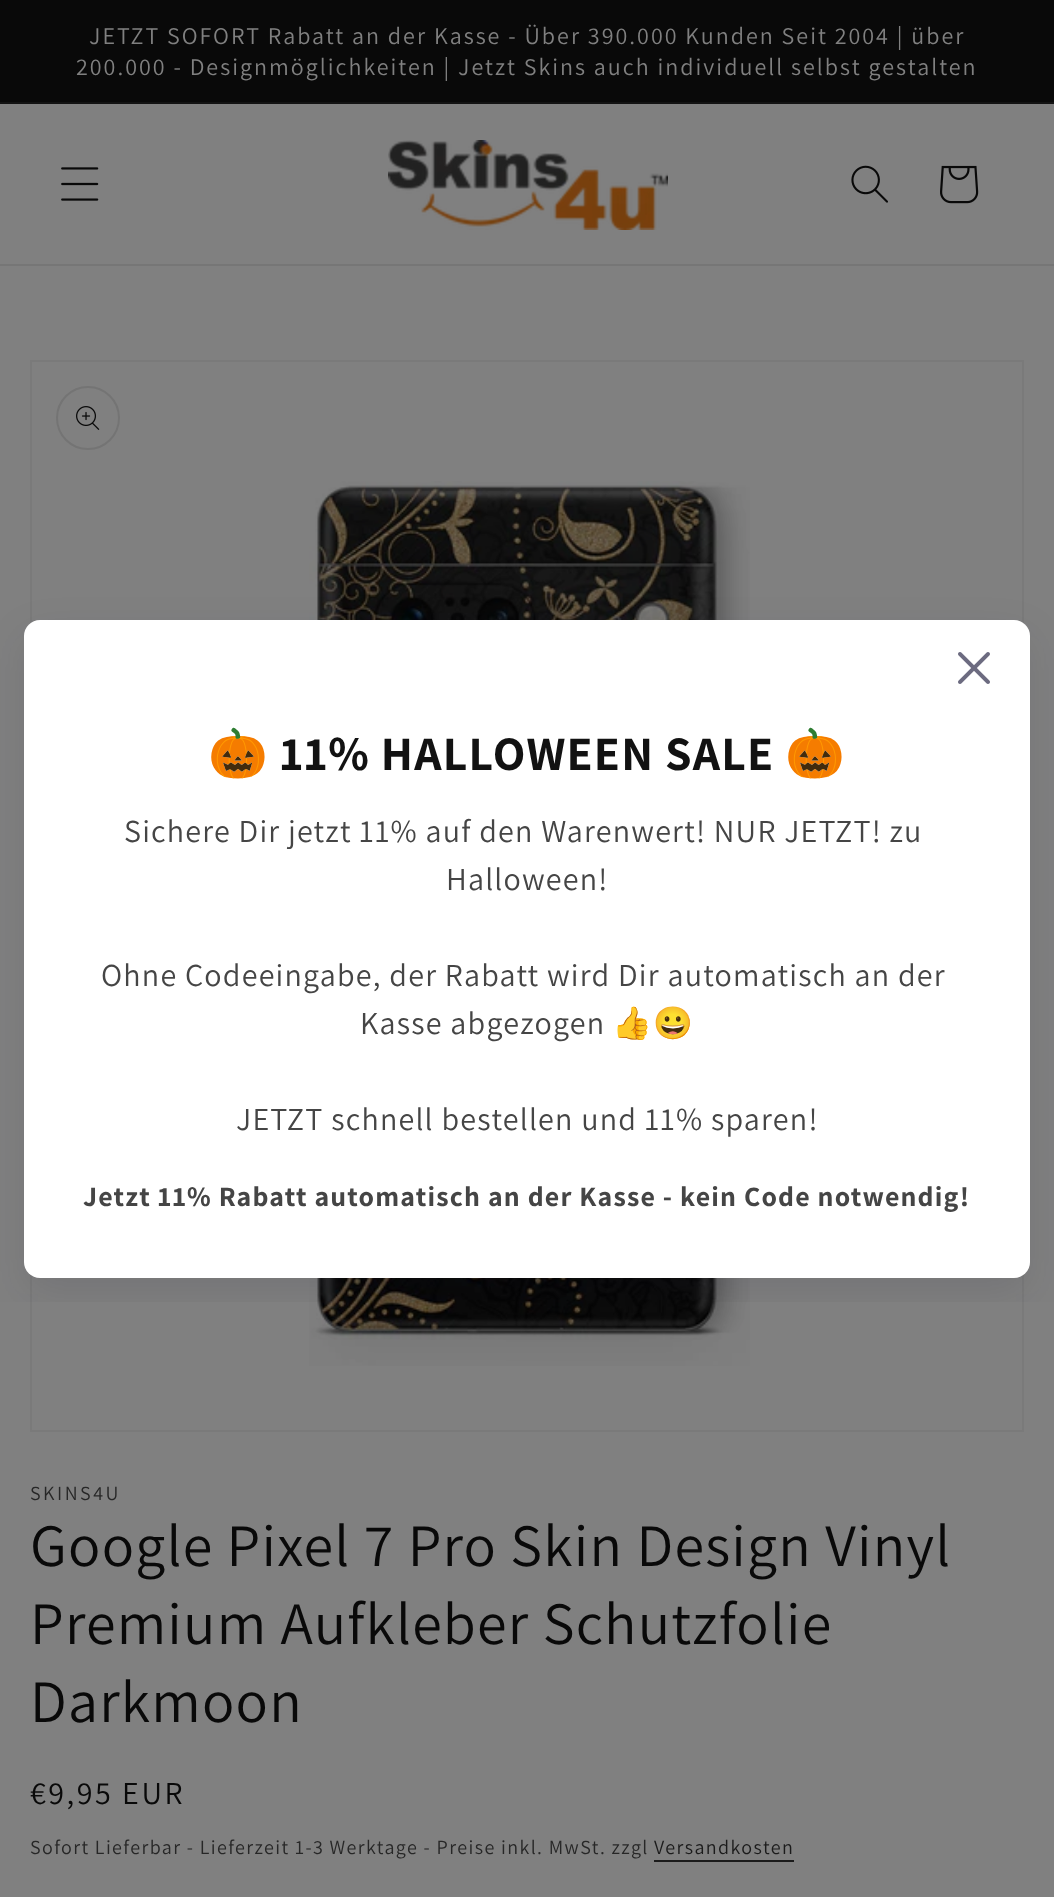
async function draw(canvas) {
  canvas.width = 1054
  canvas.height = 1897
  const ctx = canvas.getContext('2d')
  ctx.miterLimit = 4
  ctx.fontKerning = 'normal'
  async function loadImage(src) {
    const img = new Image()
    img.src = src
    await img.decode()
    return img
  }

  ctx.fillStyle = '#808080'
  ctx.fillRect(0, 0, 1054, 1897)
  ctx.fillStyle = '#090909'
  ctx.fillRect(0, 0, 1054, 102)
  ctx.fillStyle = '#131313'
  ctx.fillRect(0, 102, 1054, 2)
  ctx.letterSpacing = '2px'
  ctx.font = '24px Assistant'
  ctx.fillStyle = '#808080'
  ctx.fillText('JETZT SOFORT Rabatt an der Kasse - Über 390.000 Kunden Seit 2004 | über', 89, 44)
  ctx.fillText('200.000 - Designmöglichkeiten | Jetzt Skins auch individuell selbst gestalten', 76, 75)
  ctx.fillStyle = '#767676'
  ctx.fillRect(0, 264, 1054, 2)
  ctx.drawImage(await loadImage('image0.png'), 61, 167, 38, 34)
  ctx.drawImage(await loadImage('image1.png'), 388, 140, 280, 90)
  ctx.drawImage(await loadImage('image2.png'), 851, 165, 37, 38)
  ctx.drawImage(await loadImage('image3.png'), 940, 165, 39, 39)
  ctx.strokeStyle = '#7a7a7a'
  ctx.lineWidth = 2
  ctx.strokeRect(31, 361, 992, 1070)
  ctx.drawImage(await loadImage('image6.png'), 309, 481, 441, 885)
  ctx.save()
  ctx.beginPath()
  ctx.rect(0, 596, 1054, 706)
  ctx.clip()
  ctx.fillStyle = '#1211271a'
  ctx.filter = 'blur(20px)'
  ctx.beginPath()
  ctx.roundRect(24, 636, 1006, 658, 16)
  ctx.fill()
  ctx.filter = 'none'
  ctx.restore()
  ctx.fillStyle = '#fff'
  ctx.beginPath()
  ctx.roundRect(24, 620, 1006, 658, 16)
  ctx.fill()
  ctx.drawImage(await loadImage('image4.png'), 958, 652, 32, 32)
  ctx.letterSpacing = '1.2px'
  ctx.font = 'bold 48px Noto Color Emoji'
  ctx.fillStyle = '#121212'
  ctx.fillText('🎃', 208, 770)
  ctx.font = 'bold 48px Assistant'
  ctx.fillText('11% HALLOWEEN SALE', 280, 770)
  ctx.font = 'bold 48px Noto Color Emoji'
  ctx.fillText('🎃', 785, 770)
  ctx.font = '32px Assistant'
  ctx.fillStyle = '#454545'
  ctx.fillText('Sichere Dir jetzt 11% auf den Warenwert! NUR JETZT! zu', 124, 842)
  ctx.fillText('Halloween!', 446, 890)
  ctx.fillText('Ohne Codeeingabe, der Rabatt wird Dir automatisch an der', 101, 986)
  ctx.fillText('Kasse abgezogen', 360, 1034)
  ctx.font = '32px Noto Color Emoji'
  ctx.fillText('👍😀', 612, 1034)
  ctx.font = '32px Assistant'
  ctx.fillText('JETZT schnell bestellen und 11% sparen!', 236, 1130)
  ctx.font = 'bold 28px Assistant'
  ctx.fillText('Jetzt 11% Rabatt automatisch an der Kasse - kein Code notwendig!', 83, 1206)
  ctx.beginPath()
  ctx.arc(88, 418, 31, 0, 2 * Math.PI)
  ctx.strokeStyle = '#747474'
  ctx.stroke()
  ctx.drawImage(await loadImage('image5.png'), 76, 406, 24, 24)
  ctx.letterSpacing = '2.5px'
  ctx.font = '20px Assistant'
  ctx.fillStyle = '#272727'
  ctx.fillText('SKINS4U', 30, 1500)
  ctx.letterSpacing = '1.2px'
  ctx.font = '60px Assistant'
  ctx.fillStyle = '#090909'
  ctx.fillText('Google Pixel 7 Pro Skin Design Vinyl', 30, 1566)
  ctx.fillText('Premium Aufkleber Schutzfolie', 30, 1644)
  ctx.fillText('Darkmoon', 30, 1722)
  ctx.letterSpacing = '2.5px'
  ctx.font = '32px Assistant'
  ctx.fillText('€9,95 EUR', 30, 1804)
  ctx.letterSpacing = '1.4px'
  ctx.font = '20px Assistant'
  ctx.fillStyle = '#272727'
  ctx.fillText('Sofort Lieferbar - Lieferzeit 1-3 Werktage - Preise inkl. MwSt. zzgl', 30, 1854)
  ctx.fillStyle = '#1b1b1b'
  ctx.fillText('Versandkosten', 654, 1854)
  ctx.fillRect(654, 1860, 140, 2)
}

draw(document.querySelector('canvas'))
